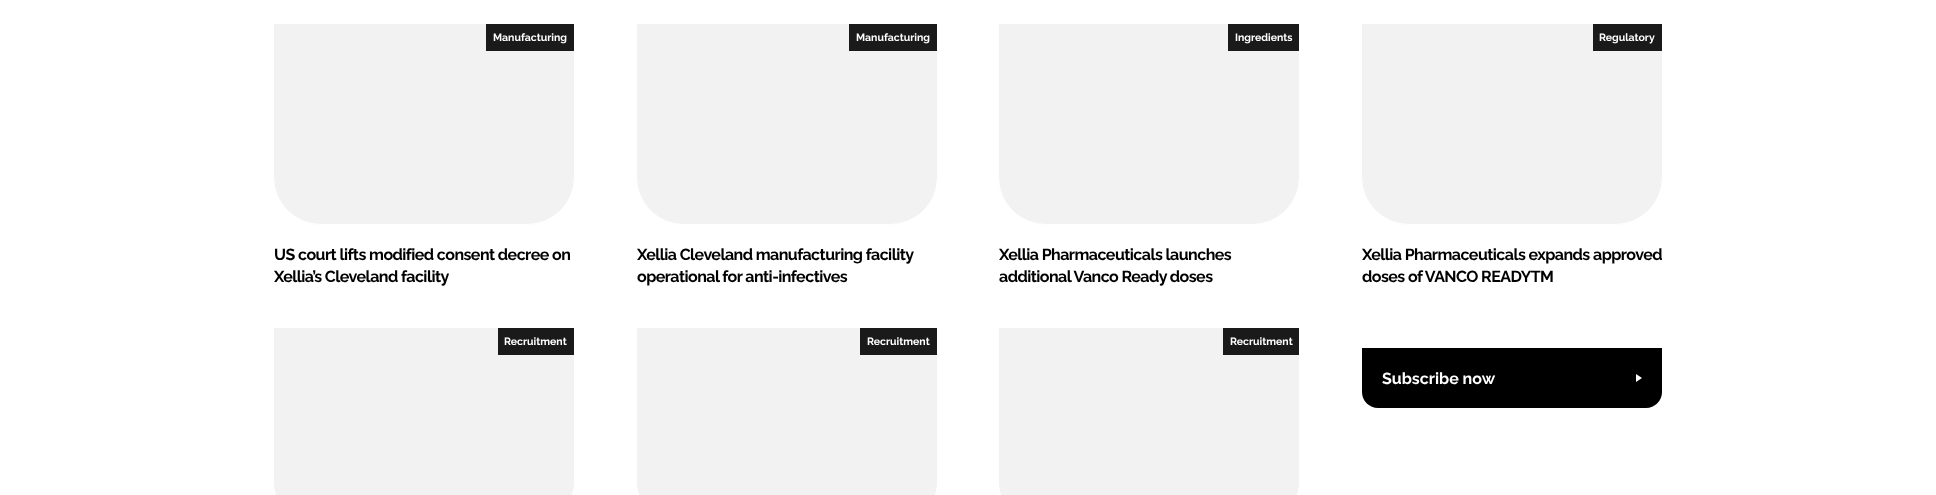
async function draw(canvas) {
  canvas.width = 1936
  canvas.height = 495
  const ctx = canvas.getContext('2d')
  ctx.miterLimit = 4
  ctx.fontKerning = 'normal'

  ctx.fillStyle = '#fff'
  ctx.fillRect(0, 0, 1936, 495)
  ctx.fillStyle = '#f2f2f2'
  ctx.beginPath()
  ctx.roundRect(273.5, 23.5, 301, 201, [0, 0, 47.5, 47.5])
  ctx.fill()
  ctx.strokeStyle = '#fff'
  ctx.stroke()
  ctx.fillStyle = '#1a1a1a'
  ctx.fillRect(486, 24, 88, 27)
  ctx.font = 'bold 10.5px Raleway'
  ctx.fillStyle = '#fff'
  ctx.fillText('Manufacturing', 493, 41)
  ctx.letterSpacing = '-0.55px'
  ctx.font = 'bold 16px Raleway'
  ctx.fillStyle = '#000'
  ctx.fillText('US court lifts modified consent decree on', 274, 260)
  ctx.fillText('Xellia’s Cleveland facility', 274, 282)
  ctx.fillStyle = '#f2f2f2'
  ctx.beginPath()
  ctx.roundRect(636.5, 23.5, 301, 201, [0, 0, 47.5, 47.5])
  ctx.fill()
  ctx.stroke()
  ctx.fillStyle = '#1a1a1a'
  ctx.fillRect(849, 24, 88, 27)
  ctx.letterSpacing = '0px'
  ctx.font = 'bold 10.5px Raleway'
  ctx.fillStyle = '#fff'
  ctx.fillText('Manufacturing', 856, 41)
  ctx.letterSpacing = '-0.55px'
  ctx.font = 'bold 16px Raleway'
  ctx.fillStyle = '#000'
  ctx.fillText('Xellia Cleveland manufacturing facility', 637, 260)
  ctx.fillText('operational for anti-infectives', 637, 282)
  ctx.fillStyle = '#f2f2f2'
  ctx.beginPath()
  ctx.roundRect(998.5, 23.5, 301, 201, [0, 0, 47.5, 47.5])
  ctx.fill()
  ctx.stroke()
  ctx.fillStyle = '#1a1a1a'
  ctx.fillRect(1228, 24, 71, 27)
  ctx.letterSpacing = '0px'
  ctx.font = 'bold 10.5px Raleway'
  ctx.fillStyle = '#fff'
  ctx.fillText('Ingredients', 1235, 41)
  ctx.letterSpacing = '-0.55px'
  ctx.font = 'bold 16px Raleway'
  ctx.fillStyle = '#000'
  ctx.fillText('Xellia Pharmaceuticals launches', 999, 260)
  ctx.fillText('additional Vanco Ready doses', 999, 282)
  ctx.fillStyle = '#f2f2f2'
  ctx.beginPath()
  ctx.roundRect(1361.5, 23.5, 301, 201, [0, 0, 47.5, 47.5])
  ctx.fill()
  ctx.stroke()
  ctx.fillStyle = '#1a1a1a'
  ctx.fillRect(1593, 24, 69, 27)
  ctx.letterSpacing = '0px'
  ctx.font = 'bold 10.5px Raleway'
  ctx.fillStyle = '#fff'
  ctx.fillText('Regulatory', 1599, 41)
  ctx.letterSpacing = '-0.55px'
  ctx.font = 'bold 16px Raleway'
  ctx.fillStyle = '#000'
  ctx.fillText('Xellia Pharmaceuticals expands approved', 1362, 260)
  ctx.fillText('doses of VANCO READYTM', 1362, 282)
  ctx.fillStyle = '#f2f2f2'
  ctx.beginPath()
  ctx.moveTo(273.5, 327.5)
  ctx.lineTo(574.5, 327.5)
  ctx.lineTo(574.5, 481)
  ctx.bezierCurveTo(574.5, 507, 553, 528.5, 527, 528.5)
  ctx.lineTo(321, 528.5)
  ctx.bezierCurveTo(295, 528.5, 273.5, 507, 273.5, 481)
  ctx.closePath()
  ctx.fill()
  ctx.stroke()
  ctx.fillStyle = '#1a1a1a'
  ctx.fillRect(498, 328, 76, 27)
  ctx.letterSpacing = '0px'
  ctx.font = 'bold 10.5px Raleway'
  ctx.fillStyle = '#fff'
  ctx.fillText('Recruitment', 504, 345)
  ctx.fillStyle = '#f2f2f2'
  ctx.beginPath()
  ctx.moveTo(636.5, 327.5)
  ctx.lineTo(937.5, 327.5)
  ctx.lineTo(937.5, 481)
  ctx.bezierCurveTo(937.5, 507, 916, 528.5, 890, 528.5)
  ctx.lineTo(684, 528.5)
  ctx.bezierCurveTo(658, 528.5, 636.5, 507, 636.5, 481)
  ctx.closePath()
  ctx.fill()
  ctx.stroke()
  ctx.fillStyle = '#1a1a1a'
  ctx.fillRect(860, 328, 77, 27)
  ctx.fillStyle = '#fff'
  ctx.fillText('Recruitment', 867, 345)
  ctx.fillStyle = '#f2f2f2'
  ctx.beginPath()
  ctx.moveTo(998.5, 327.5)
  ctx.lineTo(1299.5, 327.5)
  ctx.lineTo(1299.5, 481)
  ctx.bezierCurveTo(1299.5, 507, 1278, 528.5, 1252, 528.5)
  ctx.lineTo(1046, 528.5)
  ctx.bezierCurveTo(1020, 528.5, 998.5, 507, 998.5, 481)
  ctx.closePath()
  ctx.fill()
  ctx.stroke()
  ctx.fillStyle = '#1a1a1a'
  ctx.fillRect(1223, 328, 76, 27)
  ctx.fillStyle = '#fff'
  ctx.fillText('Recruitment', 1230, 345)
  ctx.fillStyle = '#000'
  ctx.beginPath()
  ctx.roundRect(1362, 348, 300, 60, [0, 0, 16, 16])
  ctx.fill()
  ctx.font = 'bold 16px Raleway'
  ctx.fillStyle = '#fff'
  ctx.fillText('Subscribe now', 1382, 384)
  ctx.beginPath()
  ctx.moveTo(1636, 382)
  ctx.lineTo(1636, 374)
  ctx.lineTo(1642, 378)
  ctx.closePath()
  ctx.fill()
}

draw(document.querySelector('canvas'))
